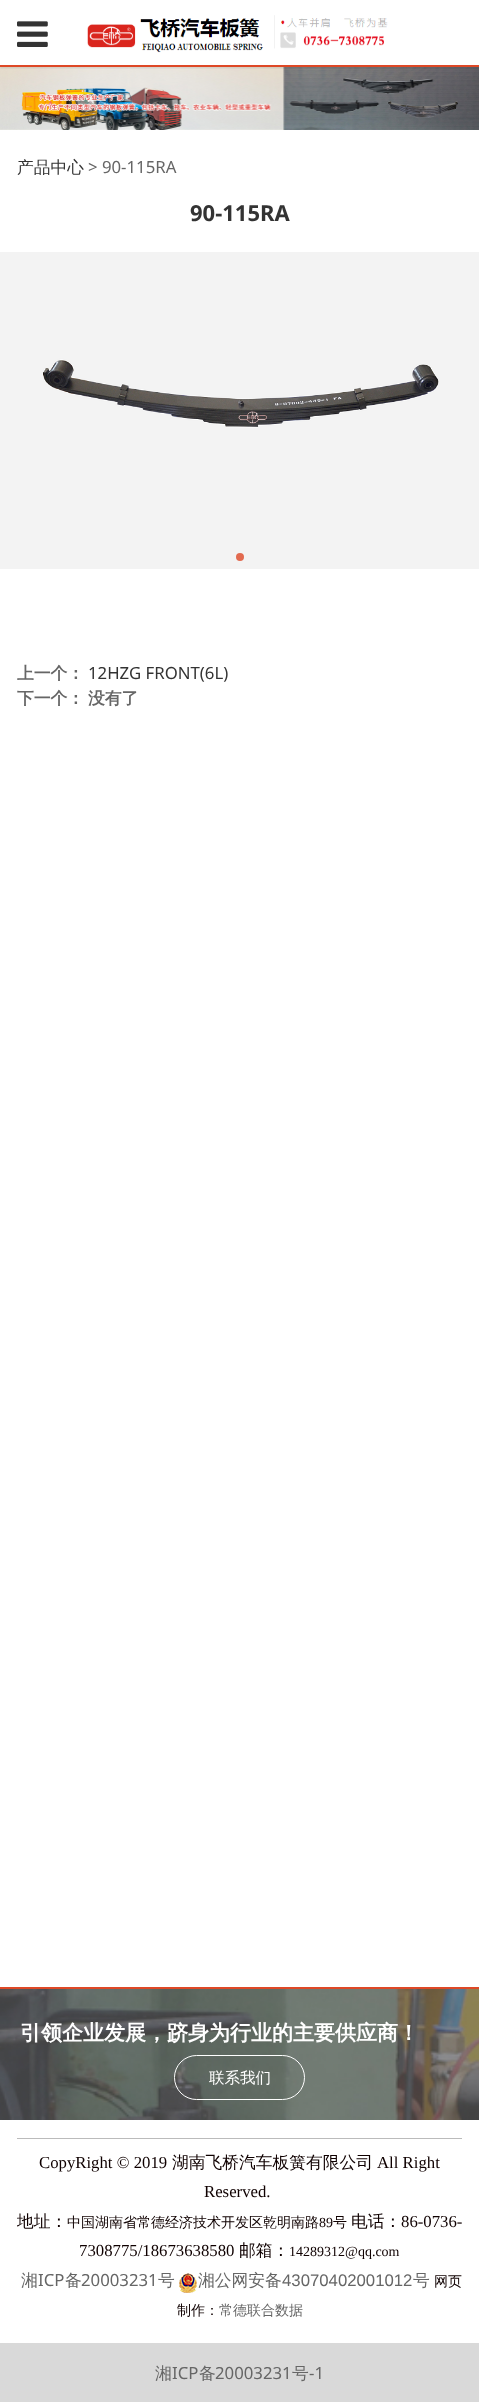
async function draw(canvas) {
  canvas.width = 479
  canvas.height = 2408
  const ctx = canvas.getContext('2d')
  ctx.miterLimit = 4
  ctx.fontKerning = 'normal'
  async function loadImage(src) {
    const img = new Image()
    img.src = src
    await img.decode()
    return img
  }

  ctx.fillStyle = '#fff'
  ctx.fillRect(0, 0, 479, 2408)
  ctx.drawImage(await loadImage('image2.png'), 0, 67, 479, 63)
  ctx.save()
  ctx.beginPath()
  ctx.rect(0, 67, 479, 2)
  ctx.clip()
  ctx.fillStyle = '#0000001a'
  ctx.filter = 'blur(1px)'
  ctx.beginPath()
  ctx.rect(0, 1, 479, 67)
  ctx.fill()
  ctx.filter = 'none'
  ctx.restore()
  ctx.fillStyle = '#de4826'
  ctx.fillRect(0, 65, 479, 2)
  ctx.drawImage(await loadImage('image0.png'), 17, 21, 31, 26)
  ctx.drawImage(await loadImage('image1.png'), 87, 15, 301, 38)
  ctx.font = '500 16.75px WenQuanYi Zen Hei'
  ctx.fillStyle = '#333'
  ctx.fillText('产品中心', 17, 173)
  ctx.font = '16.75px Noto Sans'
  ctx.fillStyle = '#666'
  ctx.fillText('> 90-115RA', 88, 173)
  ctx.font = 'bold 22px Noto Sans'
  ctx.fillStyle = '#333'
  ctx.fillText('90-115RA', 190, 221)
  ctx.drawImage(await loadImage('image3.png'), 0, 252, 479, 317)
  ctx.fillStyle = '#e26a4f'
  ctx.beginPath()
  ctx.arc(240, 557, 4, 0, 2 * Math.PI)
  ctx.fill()
  ctx.font = 'bold 16.75px WenQuanYi Zen Hei'
  ctx.fillStyle = '#666'
  ctx.fillText('上一个：', 17, 679)
  ctx.font = '16.75px Noto Sans'
  ctx.fillStyle = '#333'
  ctx.fillText('12HZG FRONT(6L)', 88, 679)
  ctx.font = 'bold 16.75px WenQuanYi Zen Hei'
  ctx.fillStyle = '#666'
  ctx.fillText('下一个：', 17, 704)
  ctx.fillText('没有了', 88, 704)
  ctx.fillStyle = '#de4826'
  ctx.fillRect(0, 1987, 479, 2)
  ctx.drawImage(await loadImage('image4.png'), 0, 1989, 479, 131)
  ctx.font = 'bold 21px WenQuanYi Zen Hei'
  ctx.fillStyle = '#fff'
  ctx.fillText('引领企业发展，跻身为行业的主要供应商！', 20, 2040)
  ctx.beginPath()
  ctx.roundRect(174.5, 2055.5, 130, 44, 22)
  ctx.strokeStyle = '#fff'
  ctx.stroke()
  ctx.font = '500 15.5px WenQuanYi Zen Hei'
  ctx.fillText('联系我们', 209, 2083)
  ctx.fillStyle = '#bbb'
  ctx.fillRect(17, 2138, 445, 1)
  ctx.font = '16.75px Liberation Serif'
  ctx.fillStyle = '#0f0000'
  ctx.fillText('CopyRight © 2019', 39, 2168)
  ctx.font = '500 16.75px WenQuanYi Zen Hei'
  ctx.fillText('湖南飞桥汽车板簧有限公司', 172, 2168)
  ctx.font = '16.75px Liberation Serif'
  ctx.fillText('All Right', 377, 2168)
  ctx.fillText('Reserved.', 204, 2197)
  ctx.font = '500 16.75px WenQuanYi Zen Hei'
  ctx.fillText('地址：', 17, 2227)
  ctx.font = '500 14px WenQuanYi Zen Hei'
  ctx.fillText('中国湖南省常德经济技术开发区乾明南路', 67, 2227)
  ctx.font = '14px Liberation Serif'
  ctx.fillText('89', 319, 2227)
  ctx.font = '500 14px WenQuanYi Zen Hei'
  ctx.fillText('号', 333, 2227)
  ctx.font = '500 16.75px WenQuanYi Zen Hei'
  ctx.fillText('电话：', 351, 2227)
  ctx.font = '16.75px Liberation Serif'
  ctx.fillText('86-0736-', 401, 2227)
  ctx.fillText('7308775/18673638580', 79, 2256)
  ctx.font = '500 16.75px WenQuanYi Zen Hei'
  ctx.fillText('邮箱：', 239, 2256)
  ctx.font = '14px Liberation Serif'
  ctx.fillText('14289312@qq.com', 289, 2256)
  ctx.font = '500 16.75px WenQuanYi Zen Hei'
  ctx.fillStyle = '#666'
  ctx.fillText('湘', 21, 2286)
  ctx.font = '16.75px Noto Sans'
  ctx.fillText('ICP', 38, 2286)
  ctx.font = '500 16.75px WenQuanYi Zen Hei'
  ctx.fillText('备', 65, 2286)
  ctx.font = '16.75px Noto Sans'
  ctx.fillText('20003231', 81, 2286)
  ctx.font = '500 16.75px WenQuanYi Zen Hei'
  ctx.fillText('号', 158, 2286)
  ctx.drawImage(await loadImage('image5.png'), 179, 2273, 18, 20)
  ctx.fillText('湘公网安备', 198, 2286)
  ctx.font = '16.75px Liberation Sans'
  ctx.fillText('43070402001012', 282, 2286)
  ctx.font = '500 16.75px WenQuanYi Zen Hei'
  ctx.fillText('号', 413, 2286)
  ctx.font = '500 14px WenQuanYi Zen Hei'
  ctx.fillStyle = '#0f0000'
  ctx.fillText('网页', 434, 2286)
  ctx.fillText('制作：', 177, 2315)
  ctx.fillStyle = '#666'
  ctx.fillText('常德联合数据', 219, 2315)
  ctx.fillStyle = '#d9d9d9'
  ctx.fillRect(0, 2343, 479, 59)
  ctx.font = '500 16.75px WenQuanYi Zen Hei'
  ctx.fillStyle = '#666'
  ctx.fillText('湘', 155, 2379)
  ctx.font = '16.75px Noto Sans'
  ctx.fillText('ICP', 172, 2379)
  ctx.font = '500 16.75px WenQuanYi Zen Hei'
  ctx.fillText('备', 199, 2379)
  ctx.font = '16.75px Noto Sans'
  ctx.fillText('20003231', 215, 2379)
  ctx.font = '500 16.75px WenQuanYi Zen Hei'
  ctx.fillText('号', 292, 2379)
  ctx.font = '16.75px Noto Sans'
  ctx.fillText('-1', 309, 2379)
}

draw(document.querySelector('canvas'))
